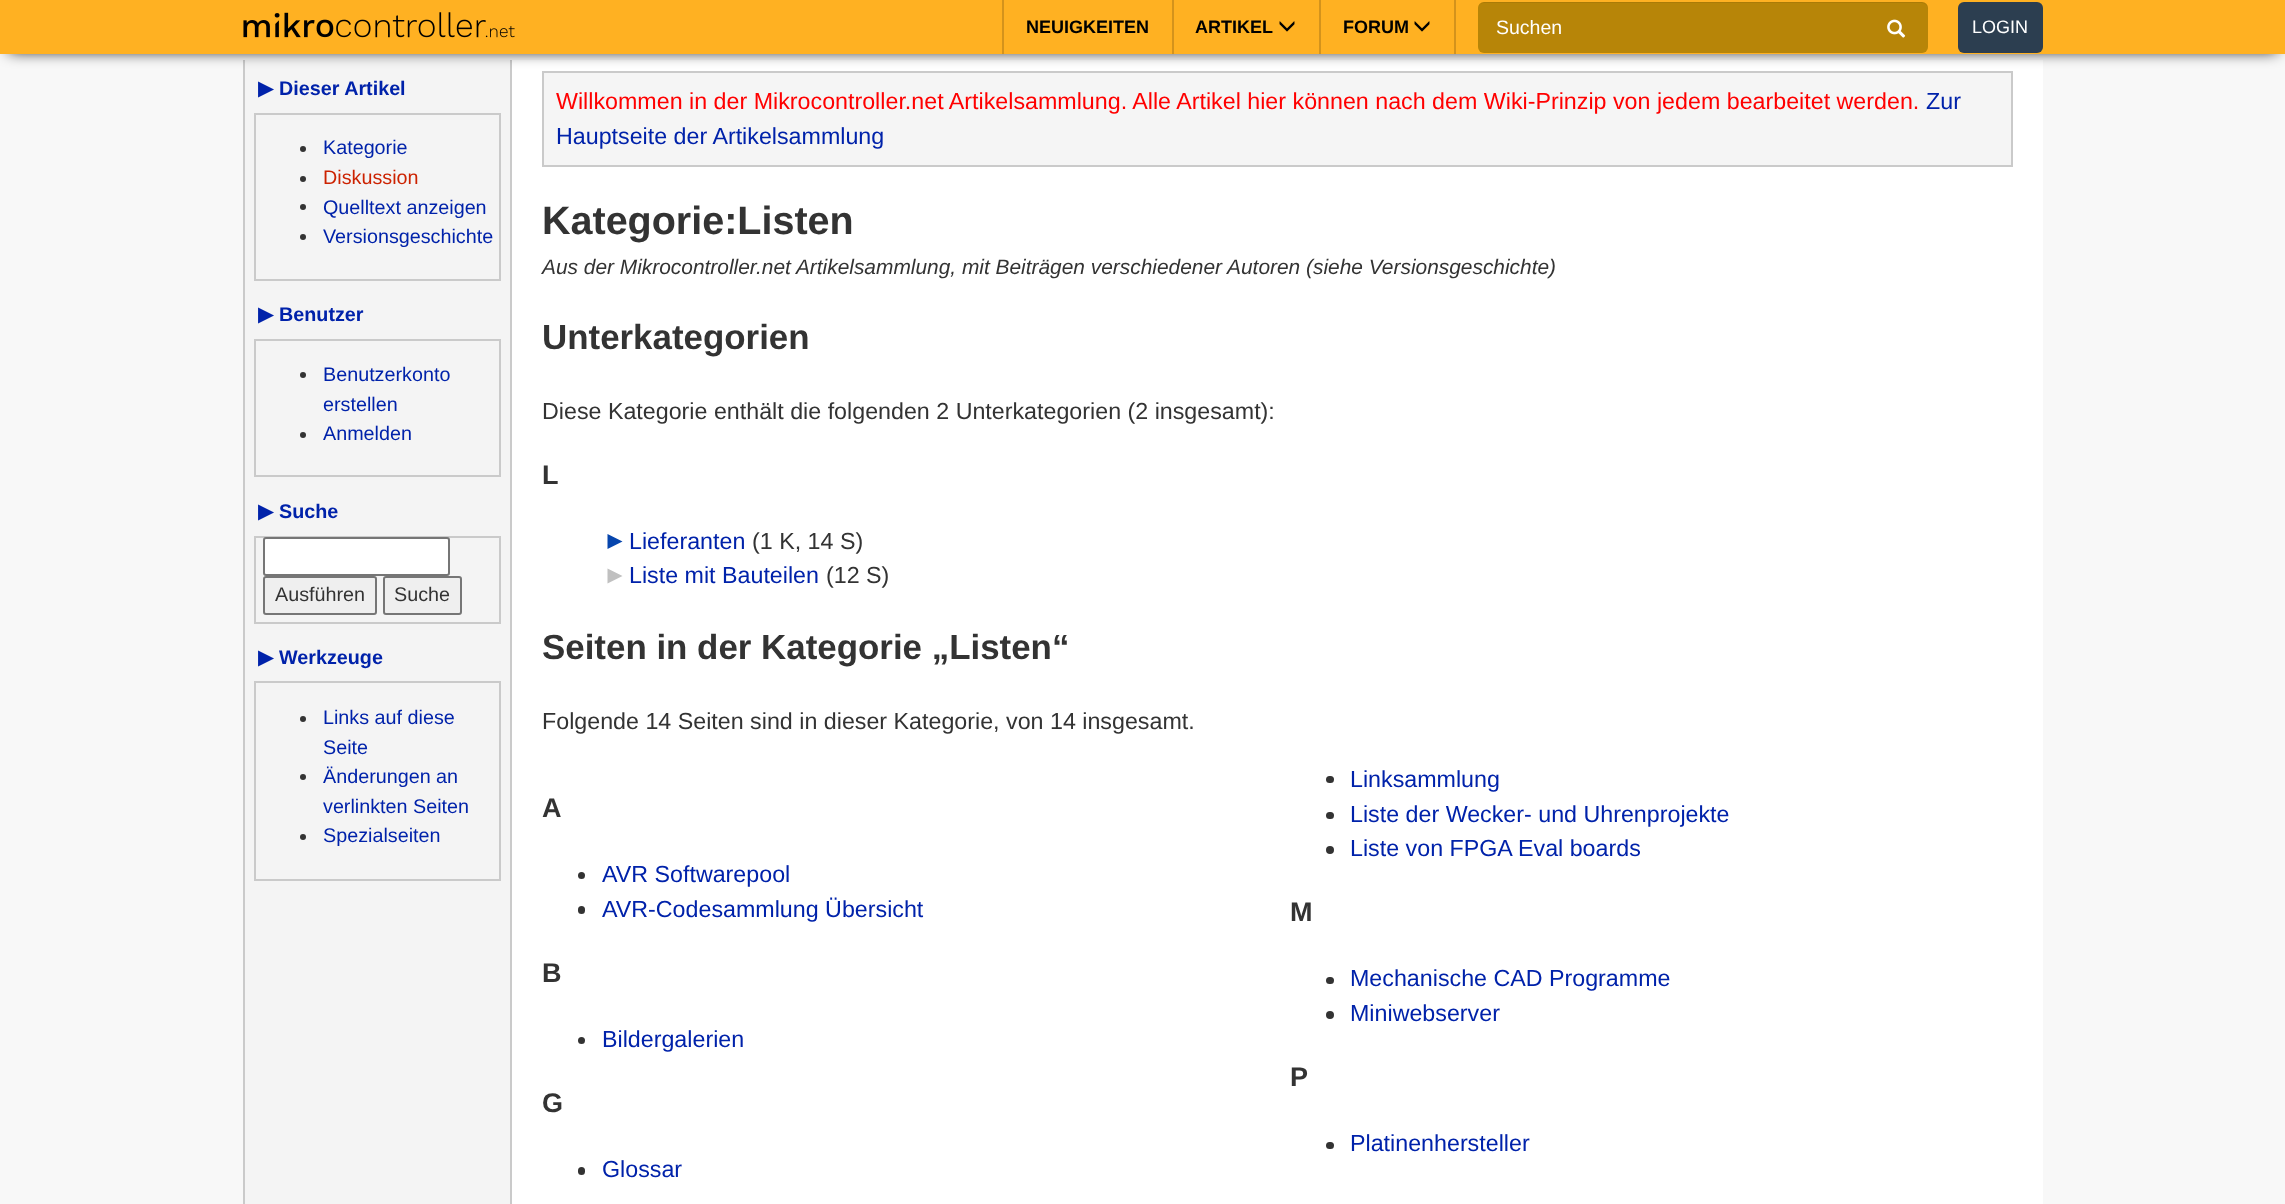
async function draw(canvas) {
  canvas.width = 2285
  canvas.height = 1204
  const ctx = canvas.getContext('2d')
  ctx.miterLimit = 4
  ctx.fontKerning = 'normal'
  async function loadImage(src) {
    const img = new Image()
    img.src = src
    await img.decode()
    return img
  }

  ctx.fillStyle = '#f8f8f8'
  ctx.fillRect(0, 0, 2285, 1204)
  ctx.fillStyle = '#f4f4f4'
  ctx.fillRect(245, 60, 265, 1144)
  ctx.fillStyle = '#cacaca'
  ctx.fillRect(510, 60, 2, 1144)
  ctx.fillRect(243, 60, 2, 1144)
  ctx.fillStyle = '#fff'
  ctx.fillRect(512, 60, 1531, 1144)
  ctx.fillStyle = '#f5f5f5'
  ctx.beginPath()
  ctx.rect(543, 72, 1469, 94)
  ctx.fill()
  ctx.strokeStyle = '#cacaca'
  ctx.lineWidth = 2
  ctx.stroke()
  ctx.fillStyle = '#000'
  ctx.filter = 'blur(7.5px)'
  ctx.beginPath()
  ctx.rect(9, 15, 2268, 36)
  ctx.fill()
  ctx.filter = 'none'
  ctx.fillStyle = '#ffb122'
  ctx.fillRect(0, 0, 2285, 54)
  ctx.drawImage(await loadImage('image0.png'), 243, 12, 272, 26)
  ctx.fillStyle = '#d4931c'
  ctx.fillRect(1172, 0, 2, 54)
  ctx.fillRect(1002, 0, 2, 54)
  ctx.font = 'bold 18px Liberation Sans'
  ctx.fillStyle = '#000'
  ctx.fillText('NEUIGKEITEN', 1026, 33)
  ctx.fillStyle = '#d4931c'
  ctx.fillRect(1319, 0, 2, 54)
  ctx.fillStyle = '#000'
  ctx.fillText('ARTIKEL', 1195, 33)
  ctx.drawImage(await loadImage('image1.png'), 1279, 21, 16, 11)
  ctx.fillStyle = '#d4931c'
  ctx.fillRect(1454, 0, 2, 54)
  ctx.fillStyle = '#000'
  ctx.fillText('FORUM', 1343, 33)
  ctx.drawImage(await loadImage('image1.png'), 1414, 21, 16, 11)
  ctx.fillStyle = '#b78508'
  ctx.beginPath()
  ctx.roundRect(1478, 2, 450, 51, 6)
  ctx.fill()
  ctx.fillStyle = '#00000012'
  ctx.beginPath()
  ctx.moveTo(1484, 3)
  ctx.lineTo(1922, 3)
  ctx.bezierCurveTo(1925, 3, 1928, 6, 1928, 9)
  ctx.lineTo(1928, 8)
  ctx.bezierCurveTo(1928, 5, 1925, 2, 1922, 2)
  ctx.lineTo(1484, 2)
  ctx.bezierCurveTo(1481, 2, 1478, 5, 1478, 8)
  ctx.lineTo(1478, 9)
  ctx.bezierCurveTo(1478, 6, 1480, 3, 1484, 3)
  ctx.closePath()
  ctx.fill()
  ctx.font = '19.5px Liberation Sans'
  ctx.fillStyle = '#fff'
  ctx.fillText('Suchen', 1496, 34)
  ctx.drawImage(await loadImage('image2.png'), 1887, 19, 19, 19)
  ctx.fillStyle = '#2c3e50'
  ctx.beginPath()
  ctx.roundRect(1958, 2, 85, 51, 6)
  ctx.fill()
  ctx.font = '18px Liberation Sans'
  ctx.fillStyle = '#fff'
  ctx.fillText('LOGIN', 1972, 33)
  ctx.font = 'bold 19.75px DejaVu Sans'
  ctx.fillStyle = '#02a'
  ctx.fillText('▶', 258, 95)
  ctx.font = 'bold 19.75px Liberation Sans'
  ctx.fillText('Dieser Artikel', 279, 95)
  ctx.strokeRect(255, 114, 245, 166)
  ctx.fillStyle = '#333'
  ctx.beginPath()
  ctx.arc(303, 149, 3, 0, 2 * Math.PI)
  ctx.fill()
  ctx.font = '19.75px Liberation Sans'
  ctx.fillStyle = '#02a'
  ctx.fillText('Kategorie', 323, 154)
  ctx.fillStyle = '#333'
  ctx.beginPath()
  ctx.arc(303, 179, 3, 0, 2 * Math.PI)
  ctx.fill()
  ctx.fillStyle = '#c20'
  ctx.fillText('Diskussion', 323, 184)
  ctx.fillStyle = '#333'
  ctx.beginPath()
  ctx.arc(303, 207, 3, 0, 2 * Math.PI)
  ctx.fill()
  ctx.fillStyle = '#02a'
  ctx.fillText('Quelltext anzeigen', 323, 214)
  ctx.fillStyle = '#333'
  ctx.beginPath()
  ctx.arc(303, 237, 3, 0, 2 * Math.PI)
  ctx.fill()
  ctx.fillStyle = '#02a'
  ctx.fillText('Versionsgeschichte', 323, 243)
  ctx.font = 'bold 19.75px DejaVu Sans'
  ctx.fillText('▶', 258, 321)
  ctx.font = 'bold 19.75px Liberation Sans'
  ctx.fillText('Benutzer', 279, 321)
  ctx.strokeRect(255, 340, 245, 136)
  ctx.fillStyle = '#333'
  ctx.beginPath()
  ctx.arc(303, 375, 3, 0, 2 * Math.PI)
  ctx.fill()
  ctx.font = '19.75px Liberation Sans'
  ctx.fillStyle = '#02a'
  ctx.fillText('Benutzerkonto', 323, 381)
  ctx.fillText('erstellen', 323, 411)
  ctx.fillStyle = '#333'
  ctx.beginPath()
  ctx.arc(303, 435, 3, 0, 2 * Math.PI)
  ctx.fill()
  ctx.fillStyle = '#02a'
  ctx.fillText('Anmelden', 323, 440)
  ctx.font = 'bold 19.75px DejaVu Sans'
  ctx.fillText('▶', 258, 518)
  ctx.font = 'bold 19.75px Liberation Sans'
  ctx.fillText('Suche', 279, 518)
  ctx.strokeRect(255, 537, 245, 86)
  ctx.fillStyle = '#fff'
  ctx.beginPath()
  ctx.roundRect(264, 538, 185, 37, 2)
  ctx.fill()
  ctx.strokeStyle = '#767676'
  ctx.stroke()
  ctx.fillStyle = '#efefef'
  ctx.beginPath()
  ctx.roundRect(264, 577, 112, 37, 2)
  ctx.fill()
  ctx.stroke()
  ctx.font = '19.75px Liberation Sans'
  ctx.fillStyle = '#333'
  ctx.fillText('Ausführen', 275, 601)
  ctx.fillStyle = '#efefef'
  ctx.beginPath()
  ctx.roundRect(384, 577, 77, 37, 2)
  ctx.fill()
  ctx.stroke()
  ctx.fillStyle = '#333'
  ctx.fillText('Suche', 394, 601)
  ctx.font = 'bold 19.75px DejaVu Sans'
  ctx.fillStyle = '#02a'
  ctx.fillText('▶', 258, 664)
  ctx.font = 'bold 19.75px Liberation Sans'
  ctx.fillText('Werkzeuge', 279, 664)
  ctx.strokeStyle = '#cacaca'
  ctx.strokeRect(255, 682, 245, 198)
  ctx.fillStyle = '#333'
  ctx.beginPath()
  ctx.arc(303, 719, 3, 0, 2 * Math.PI)
  ctx.fill()
  ctx.font = '19.75px Liberation Sans'
  ctx.fillStyle = '#02a'
  ctx.fillText('Links auf diese', 323, 724)
  ctx.fillText('Seite', 323, 754)
  ctx.fillStyle = '#333'
  ctx.beginPath()
  ctx.arc(303, 777, 3, 0, 2 * Math.PI)
  ctx.fill()
  ctx.fillStyle = '#02a'
  ctx.fillText('Änderungen an', 323, 783)
  ctx.fillText('verlinkten Seiten', 323, 813)
  ctx.fillStyle = '#333'
  ctx.beginPath()
  ctx.arc(303, 837, 3, 0, 2 * Math.PI)
  ctx.fill()
  ctx.fillStyle = '#02a'
  ctx.fillText('Spezialseiten', 323, 842)
  ctx.font = '23.25px Liberation Sans'
  ctx.fillStyle = '#f00'
  ctx.fillText('Willkommen in der Mikrocontroller.net Artikelsammlung. Alle Artikel hier können nach dem Wiki-Prinzip von jedem bearbeitet werden.', 556, 109)
  ctx.fillStyle = '#02a'
  ctx.fillText('Zur', 1926, 109)
  ctx.fillText('Hauptseite der Artikelsammlung', 556, 144)
  ctx.font = 'bold 39.5px Liberation Sans'
  ctx.fillStyle = '#333'
  ctx.fillText('Kategorie:Listen', 542, 234)
  ctx.font = 'italic 20.9px Liberation Sans'
  ctx.fillText('Aus der Mikrocontroller.net Artikelsammlung, mit Beiträgen verschiedener Autoren (siehe Versionsgeschichte)', 542, 274)
  ctx.font = 'bold 34.9px Liberation Sans'
  ctx.fillText('Unterkategorien', 542, 349)
  ctx.font = '23.25px Liberation Sans'
  ctx.fillText('Diese Kategorie enthält die folgenden 2 Unterkategorien (2 insgesamt):', 542, 419)
  ctx.font = 'bold 27px Liberation Sans'
  ctx.fillText('L', 542, 484)
  ctx.fillStyle = '#0645ad'
  ctx.beginPath()
  ctx.moveTo(607.5, 549)
  ctx.lineTo(607.5, 534)
  ctx.lineTo(622.5, 541.5)
  ctx.closePath()
  ctx.fill()
  ctx.font = '23.25px Liberation Sans'
  ctx.fillStyle = '#02a'
  ctx.fillText('Lieferanten', 629, 549)
  ctx.fillStyle = '#333'
  ctx.fillText('(1 K, 14 S)', 752, 549)
  ctx.fillStyle = '#c0c0c0'
  ctx.beginPath()
  ctx.moveTo(607.5, 583.5)
  ctx.lineTo(607.5, 568.5)
  ctx.lineTo(622.5, 576)
  ctx.closePath()
  ctx.fill()
  ctx.fillStyle = '#02a'
  ctx.fillText('Liste mit Bauteilen', 629, 583)
  ctx.fillStyle = '#333'
  ctx.fillText('(12 S)', 826, 583)
  ctx.font = 'bold 34.9px Liberation Sans'
  ctx.fillText('Seiten in der Kategorie „Listen“', 542, 659)
  ctx.font = '23.25px Liberation Sans'
  ctx.fillText('Folgende 14 Seiten sind in dieser Kategorie, von 14 insgesamt.', 542, 729)
  ctx.font = 'bold 27px Liberation Sans'
  ctx.fillText('A', 542, 817)
  ctx.beginPath()
  ctx.arc(581.5, 875.5, 3.5, 0, 2 * Math.PI)
  ctx.fill()
  ctx.font = '23.25px Liberation Sans'
  ctx.fillStyle = '#02a'
  ctx.fillText('AVR Softwarepool', 602, 882)
  ctx.fillStyle = '#333'
  ctx.beginPath()
  ctx.roundRect(578, 906, 7, 8, 3.5)
  ctx.fill()
  ctx.fillStyle = '#02a'
  ctx.fillText('AVR-Codesammlung Übersicht', 602, 917)
  ctx.fillStyle = '#333'
  ctx.beginPath()
  ctx.roundRect(1326, 776, 8, 7, 3.5)
  ctx.fill()
  ctx.fillStyle = '#02a'
  ctx.fillText('Linksammlung', 1350, 787)
  ctx.fillStyle = '#333'
  ctx.beginPath()
  ctx.roundRect(1326, 812, 8, 7, 3.5)
  ctx.fill()
  ctx.fillStyle = '#02a'
  ctx.fillText('Liste der Wecker- und Uhrenprojekte', 1350, 822)
  ctx.fillStyle = '#333'
  ctx.beginPath()
  ctx.arc(1330, 850, 4, 0, 2 * Math.PI)
  ctx.fill()
  ctx.fillStyle = '#02a'
  ctx.fillText('Liste von FPGA Eval boards', 1350, 856)
  ctx.font = 'bold 27px Liberation Sans'
  ctx.fillStyle = '#333'
  ctx.fillText('B', 542, 982)
  ctx.beginPath()
  ctx.arc(581.5, 1040.5, 3.5, 0, 2 * Math.PI)
  ctx.fill()
  ctx.font = '23.25px Liberation Sans'
  ctx.fillStyle = '#02a'
  ctx.fillText('Bildergalerien', 602, 1047)
  ctx.font = 'bold 27px Liberation Sans'
  ctx.fillStyle = '#333'
  ctx.fillText('M', 1290, 921)
  ctx.beginPath()
  ctx.roundRect(1326, 977, 8, 7, 3.5)
  ctx.fill()
  ctx.font = '23.25px Liberation Sans'
  ctx.fillStyle = '#02a'
  ctx.fillText('Mechanische CAD Programme', 1350, 986)
  ctx.fillStyle = '#333'
  ctx.beginPath()
  ctx.arc(1330, 1015, 4, 0, 2 * Math.PI)
  ctx.fill()
  ctx.fillStyle = '#02a'
  ctx.fillText('Miniwebserver', 1350, 1021)
  ctx.font = 'bold 27px Liberation Sans'
  ctx.fillStyle = '#333'
  ctx.fillText('G', 542, 1112)
  ctx.beginPath()
  ctx.roundRect(578, 1167, 7, 8, 3.5)
  ctx.fill()
  ctx.font = '23.25px Liberation Sans'
  ctx.fillStyle = '#02a'
  ctx.fillText('Glossar', 602, 1177)
  ctx.font = 'bold 27px Liberation Sans'
  ctx.fillStyle = '#333'
  ctx.fillText('P', 1290, 1086)
  ctx.beginPath()
  ctx.roundRect(1326, 1142, 8, 7, 3.5)
  ctx.fill()
  ctx.font = '23.25px Liberation Sans'
  ctx.fillStyle = '#02a'
  ctx.fillText('Platinenhersteller', 1350, 1151)
}

draw(document.querySelector('canvas'))
